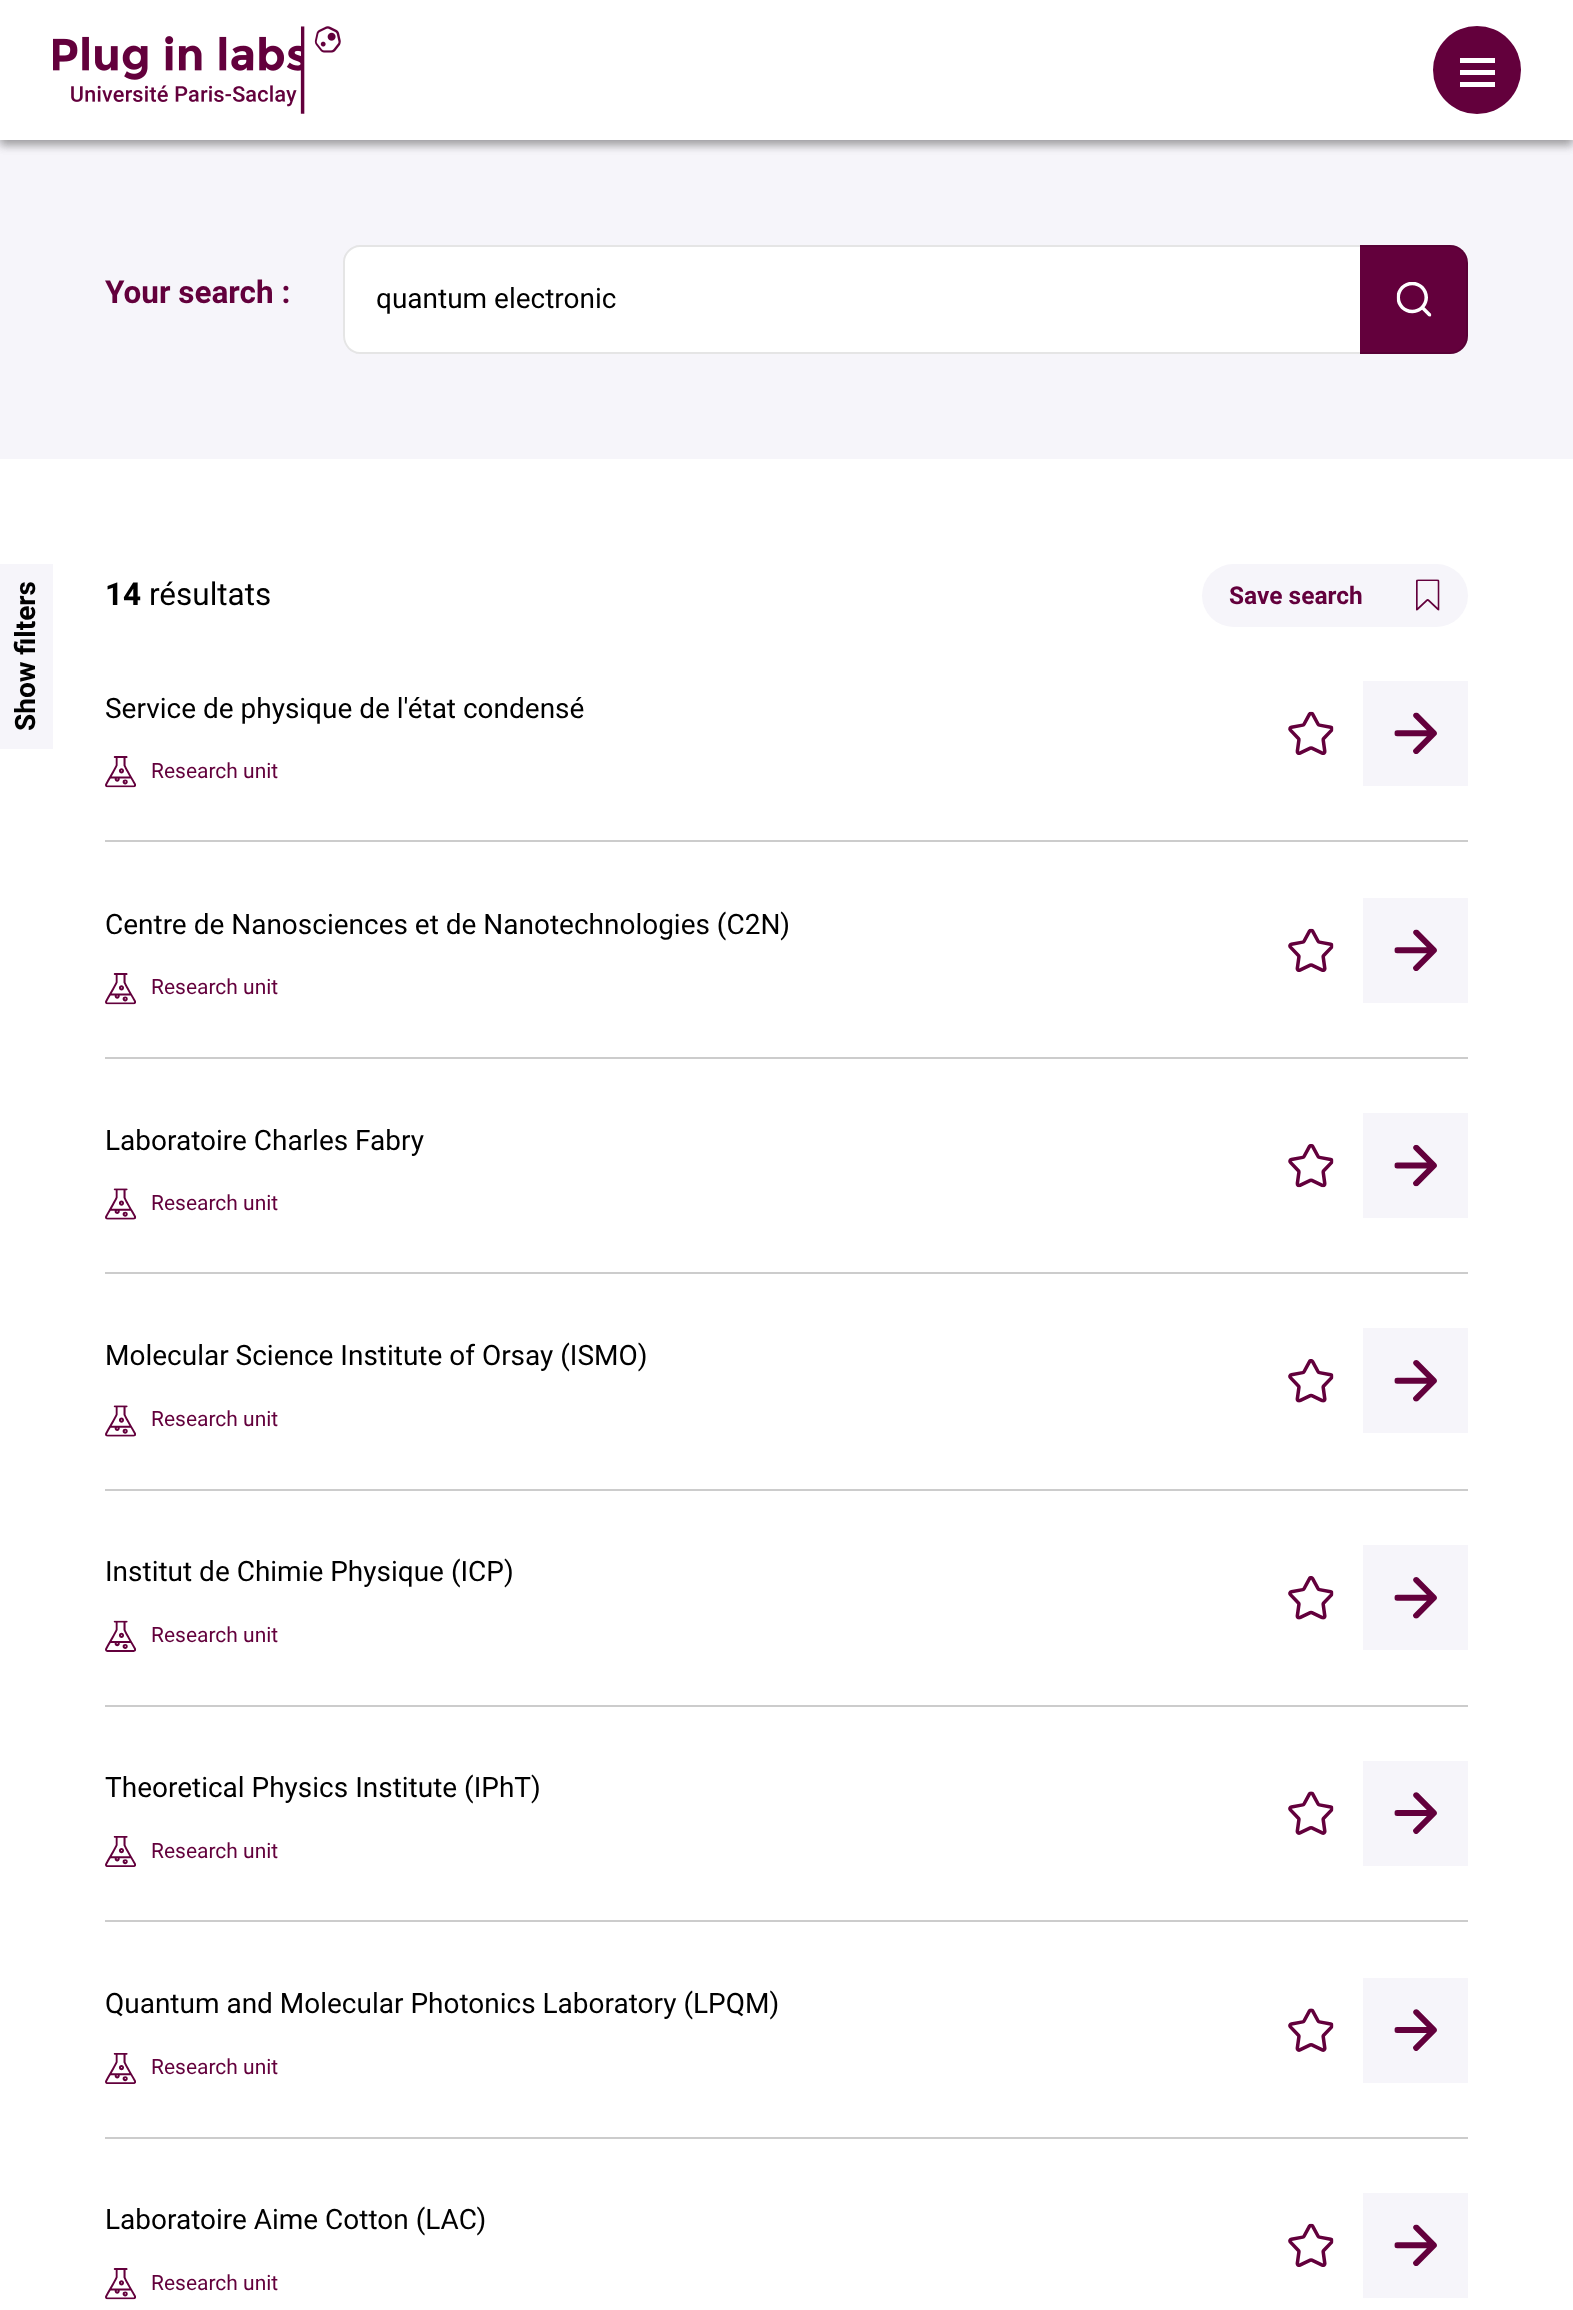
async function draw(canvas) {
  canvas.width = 1573
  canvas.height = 2310
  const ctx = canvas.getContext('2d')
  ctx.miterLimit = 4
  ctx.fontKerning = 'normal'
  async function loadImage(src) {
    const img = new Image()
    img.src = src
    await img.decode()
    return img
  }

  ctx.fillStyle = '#fff'
  ctx.fillRect(0, 0, 1573, 2310)
  ctx.fillStyle = '#f6f5fa'
  ctx.fillRect(0, 140, 1573, 319)
  ctx.fillStyle = '#00000033'
  ctx.filter = 'blur(5px)'
  ctx.beginPath()
  ctx.rect(0, -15, 1573, 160)
  ctx.fill()
  ctx.filter = 'none'
  ctx.filter = 'blur(5px)'
  ctx.beginPath()
  ctx.rect(0, 5, 1573, 140)
  ctx.fill()
  ctx.filter = 'none'
  ctx.fillStyle = '#fff'
  ctx.fillRect(0, 0, 1573, 140)
  ctx.drawImage(await loadImage('image0.png'), 53, 26, 288, 88)
  ctx.fillStyle = '#63003c'
  ctx.beginPath()
  ctx.arc(1477, 70, 44, 0, 2 * Math.PI)
  ctx.fill()
  ctx.fillStyle = '#fff'
  ctx.fillRect(1460, 70, 35, 5)
  ctx.fillRect(1460, 58, 35, 5)
  ctx.fillRect(1460, 82, 35, 5)
  ctx.font = 'bold 31.5px Roboto'
  ctx.fillStyle = '#63003c'
  ctx.fillText('Your search :', 105, 303)
  ctx.fillStyle = '#fff'
  ctx.beginPath()
  ctx.roundRect(343, 245, 1017, 109, [18, 0, 0, 18])
  ctx.fill()
  ctx.fillStyle = '#0000001a'
  ctx.beginPath()
  ctx.moveTo(360, 245)
  ctx.lineTo(1360, 245)
  ctx.lineTo(1360, 354)
  ctx.lineTo(360, 354)
  ctx.bezierCurveTo(351, 354, 343, 346, 343, 336)
  ctx.lineTo(343, 262)
  ctx.bezierCurveTo(343, 253, 351, 245, 360, 245)
  ctx.closePath()
  ctx.moveTo(360, 247)
  ctx.lineTo(1360, 247)
  ctx.lineTo(1360, 352)
  ctx.lineTo(360, 352)
  ctx.bezierCurveTo(352, 352, 345, 345, 345, 336)
  ctx.lineTo(345, 262)
  ctx.bezierCurveTo(345, 254, 352, 247, 360, 247)
  ctx.closePath()
  ctx.fill('evenodd')
  ctx.font = '28px Roboto'
  ctx.fillStyle = '#000'
  ctx.fillText('quantum electronic', 376, 308)
  ctx.fillStyle = '#63003c'
  ctx.beginPath()
  ctx.roundRect(1360, 245, 108, 109, [0, 18, 18, 0])
  ctx.fill()
  ctx.fillStyle = '#0000001a'
  ctx.beginPath()
  ctx.moveTo(1360, 245)
  ctx.lineTo(1451, 245)
  ctx.bezierCurveTo(1460, 245, 1468, 253, 1468, 262)
  ctx.lineTo(1468, 336)
  ctx.bezierCurveTo(1468, 346, 1460, 354, 1451, 354)
  ctx.lineTo(1360, 354)
  ctx.closePath()
  ctx.moveTo(1360, 247)
  ctx.lineTo(1451, 247)
  ctx.bezierCurveTo(1459, 247, 1466, 254, 1466, 262)
  ctx.lineTo(1466, 336)
  ctx.bezierCurveTo(1466, 345, 1459, 352, 1451, 352)
  ctx.lineTo(1360, 352)
  ctx.closePath()
  ctx.fill('evenodd')
  ctx.drawImage(await loadImage('image1.png'), 1396, 282, 36, 35)
  ctx.fillStyle = '#f6f5fa'
  ctx.fillRect(0, 564, 53, 185)
  ctx.font = 'bold 28px Roboto'
  ctx.fillStyle = '#000'
  ctx.save()
  ctx.translate(35, 731)
  ctx.rotate(-90 * Math.PI / 180)
  ctx.fillText('Show filters', 0, 0)
  ctx.restore()
  ctx.font = 'bold 31.5px Roboto'
  ctx.fillText('14', 105, 605)
  ctx.font = '31.5px Roboto'
  ctx.fillText('résultats', 149, 605)
  ctx.fillStyle = '#f6f5fa'
  ctx.beginPath()
  ctx.roundRect(1202, 564, 266, 63, 31.5)
  ctx.fill()
  ctx.font = 'bold 24.5px Roboto'
  ctx.fillStyle = '#63003c'
  ctx.fillText('Save search', 1229, 604)
  ctx.drawImage(await loadImage('image2.png'), 1416, 579, 24, 32)
  ctx.font = '28px Roboto'
  ctx.fillStyle = '#000'
  ctx.fillText('Service de physique de l\'état condensé', 105, 718)
  ctx.drawImage(await loadImage('image3.png'), 1288, 711, 46, 44)
  ctx.fillStyle = '#f6f5fa'
  ctx.fillRect(1363, 681, 105, 105)
  ctx.drawImage(await loadImage('image4.png'), 1394, 712, 43, 42)
  ctx.drawImage(await loadImage('image5.png'), 105, 756, 31, 32)
  ctx.font = '21px Roboto'
  ctx.fillStyle = '#63003c'
  ctx.fillText('Research unit', 151, 778)
  ctx.fillStyle = '#ccc'
  ctx.fillRect(105, 840, 1363, 2)
  ctx.font = '28px Roboto'
  ctx.fillStyle = '#000'
  ctx.fillText('Centre de Nanosciences et de Nanotechnologies (C2N)', 105, 934)
  ctx.drawImage(await loadImage('image6.png'), 1288, 928, 46, 44)
  ctx.fillStyle = '#f6f5fa'
  ctx.fillRect(1363, 898, 105, 105)
  ctx.drawImage(await loadImage('image7.png'), 1394, 929, 43, 42)
  ctx.drawImage(await loadImage('image5.png'), 105, 973, 31, 32)
  ctx.font = '21px Roboto'
  ctx.fillStyle = '#63003c'
  ctx.fillText('Research unit', 151, 994)
  ctx.fillStyle = '#ccc'
  ctx.fillRect(105, 1057, 1363, 2)
  ctx.font = '28px Roboto'
  ctx.fillStyle = '#000'
  ctx.fillText('Laboratoire Charles Fabry', 105, 1150)
  ctx.drawImage(await loadImage('image8.png'), 1288, 1144, 46, 44)
  ctx.fillStyle = '#f6f5fa'
  ctx.fillRect(1363, 1113, 105, 105)
  ctx.drawImage(await loadImage('image9.png'), 1394, 1144, 43, 43)
  ctx.drawImage(await loadImage('image10.png'), 105, 1188, 32, 32)
  ctx.font = '21px Roboto'
  ctx.fillStyle = '#63003c'
  ctx.fillText('Research unit', 151, 1210)
  ctx.fillStyle = '#ccc'
  ctx.fillRect(105, 1272, 1363, 2)
  ctx.font = '28px Roboto'
  ctx.fillStyle = '#000'
  ctx.fillText('Molecular Science Institute of Orsay (ISMO)', 105, 1365)
  ctx.drawImage(await loadImage('image11.png'), 1288, 1359, 46, 44)
  ctx.fillStyle = '#f6f5fa'
  ctx.fillRect(1363, 1328, 105, 105)
  ctx.drawImage(await loadImage('image12.png'), 1394, 1360, 43, 42)
  ctx.drawImage(await loadImage('image13.png'), 105, 1405, 31, 32)
  ctx.font = '21px Roboto'
  ctx.fillStyle = '#63003c'
  ctx.fillText('Research unit', 151, 1426)
  ctx.fillStyle = '#ccc'
  ctx.fillRect(105, 1489, 1363, 2)
  ctx.font = '28px Roboto'
  ctx.fillStyle = '#000'
  ctx.fillText('Institut de Chimie Physique (ICP)', 105, 1581)
  ctx.drawImage(await loadImage('image11.png'), 1288, 1576, 46, 44)
  ctx.fillStyle = '#f6f5fa'
  ctx.fillRect(1363, 1545, 105, 105)
  ctx.drawImage(await loadImage('image12.png'), 1394, 1577, 43, 42)
  ctx.drawImage(await loadImage('image14.png'), 105, 1620, 32, 32)
  ctx.font = '21px Roboto'
  ctx.fillStyle = '#63003c'
  ctx.fillText('Research unit', 151, 1642)
  ctx.fillStyle = '#ccc'
  ctx.fillRect(105, 1705, 1363, 2)
  ctx.font = '28px Roboto'
  ctx.fillStyle = '#000'
  ctx.fillText('Theoretical Physics Institute (IPhT)', 105, 1797)
  ctx.drawImage(await loadImage('image15.png'), 1288, 1791, 46, 44)
  ctx.fillStyle = '#f6f5fa'
  ctx.fillRect(1363, 1761, 105, 105)
  ctx.drawImage(await loadImage('image16.png'), 1394, 1792, 43, 42)
  ctx.drawImage(await loadImage('image17.png'), 105, 1836, 31, 31)
  ctx.font = '21px Roboto'
  ctx.fillStyle = '#63003c'
  ctx.fillText('Research unit', 151, 1858)
  ctx.fillStyle = '#ccc'
  ctx.fillRect(105, 1920, 1363, 2)
  ctx.font = '28px Roboto'
  ctx.fillStyle = '#000'
  ctx.fillText('Quantum and Molecular Photonics Laboratory (LPQM)', 105, 2013)
  ctx.drawImage(await loadImage('image15.png'), 1288, 2008, 46, 44)
  ctx.fillStyle = '#f6f5fa'
  ctx.fillRect(1363, 1978, 105, 105)
  ctx.drawImage(await loadImage('image16.png'), 1394, 2009, 43, 42)
  ctx.drawImage(await loadImage('image17.png'), 105, 2053, 31, 31)
  ctx.font = '21px Roboto'
  ctx.fillStyle = '#63003c'
  ctx.fillText('Research unit', 151, 2074)
  ctx.fillStyle = '#ccc'
  ctx.fillRect(105, 2137, 1363, 2)
  ctx.font = '28px Roboto'
  ctx.fillStyle = '#000'
  ctx.fillText('Laboratoire Aime Cotton (LAC)', 105, 2229)
  ctx.drawImage(await loadImage('image18.png'), 1288, 2223, 46, 44)
  ctx.fillStyle = '#f6f5fa'
  ctx.fillRect(1363, 2193, 105, 105)
  ctx.drawImage(await loadImage('image19.png'), 1394, 2224, 43, 42)
  ctx.drawImage(await loadImage('image5.png'), 105, 2268, 31, 32)
  ctx.font = '21px Roboto'
  ctx.fillStyle = '#63003c'
  ctx.fillText('Research unit', 151, 2290)
}

draw(document.querySelector('canvas'))
